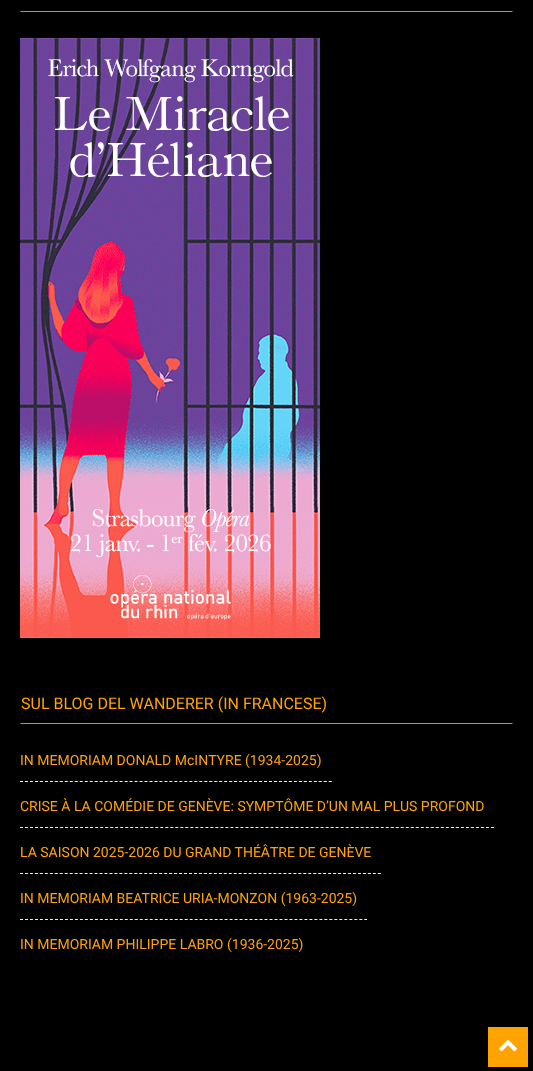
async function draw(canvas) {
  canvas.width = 533
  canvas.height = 1071
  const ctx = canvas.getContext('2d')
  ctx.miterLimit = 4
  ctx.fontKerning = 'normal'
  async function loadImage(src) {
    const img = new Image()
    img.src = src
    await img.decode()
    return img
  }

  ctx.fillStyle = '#000'
  ctx.fillRect(0, 0, 533, 1071)
  ctx.fillStyle = '#999'
  ctx.beginPath()
  ctx.moveTo(513, 12)
  ctx.lineTo(20, 12)
  ctx.lineTo(21, 11)
  ctx.lineTo(512, 11)
  ctx.closePath()
  ctx.fill()
  ctx.drawImage(await loadImage('image0.png'), 20, 38, 300, 600)
  ctx.beginPath()
  ctx.moveTo(513, 724)
  ctx.lineTo(20, 724)
  ctx.lineTo(21, 723)
  ctx.lineTo(512, 723)
  ctx.closePath()
  ctx.fill()
  ctx.font = '16px Roboto'
  ctx.fillStyle = '#ffa301'
  ctx.fillText('SUL BLOG DEL WANDERER (IN FRANCESE)', 21, 709)
  ctx.beginPath()
  ctx.moveTo(20, 781.5)
  ctx.lineTo(332, 781.5)
  ctx.strokeStyle = '#f1f1f1'
  ctx.setLineDash([3, 1.98])
  ctx.stroke()
  ctx.font = '14px Heebo'
  ctx.fillText('IN MEMORIAM DONALD McINTYRE (1934-2025)', 20, 765)
  ctx.beginPath()
  ctx.moveTo(20, 827.5)
  ctx.lineTo(494, 827.5)
  ctx.setLineDash([3, 2.01])
  ctx.stroke()
  ctx.fillText('CRISE À LA COMÉDIE DE GENÈVE: SYMPTÔME D’UN MAL PLUS PROFOND', 20, 811)
  ctx.beginPath()
  ctx.moveTo(20, 873.5)
  ctx.lineTo(381, 873.5)
  ctx.setLineDash([3, 1.97])
  ctx.stroke()
  ctx.fillText('LA SAISON 2025-2026 DU GRAND THÉÂTRE DE GENÈVE', 20, 857)
  ctx.beginPath()
  ctx.moveTo(20, 919.5)
  ctx.lineTo(367, 919.5)
  ctx.setLineDash([3, 1.99])
  ctx.stroke()
  ctx.fillText('IN MEMORIAM BEATRICE URIA-MONZON (1963-2025)', 20, 903)
  ctx.fillText('IN MEMORIAM PHILIPPE LABRO (1936-2025)', 20, 949)
  ctx.fillRect(488, 1027, 40, 40)
  ctx.drawImage(await loadImage('image1.png'), 499, 1039, 18, 13)
}

draw(document.querySelector('canvas'))
